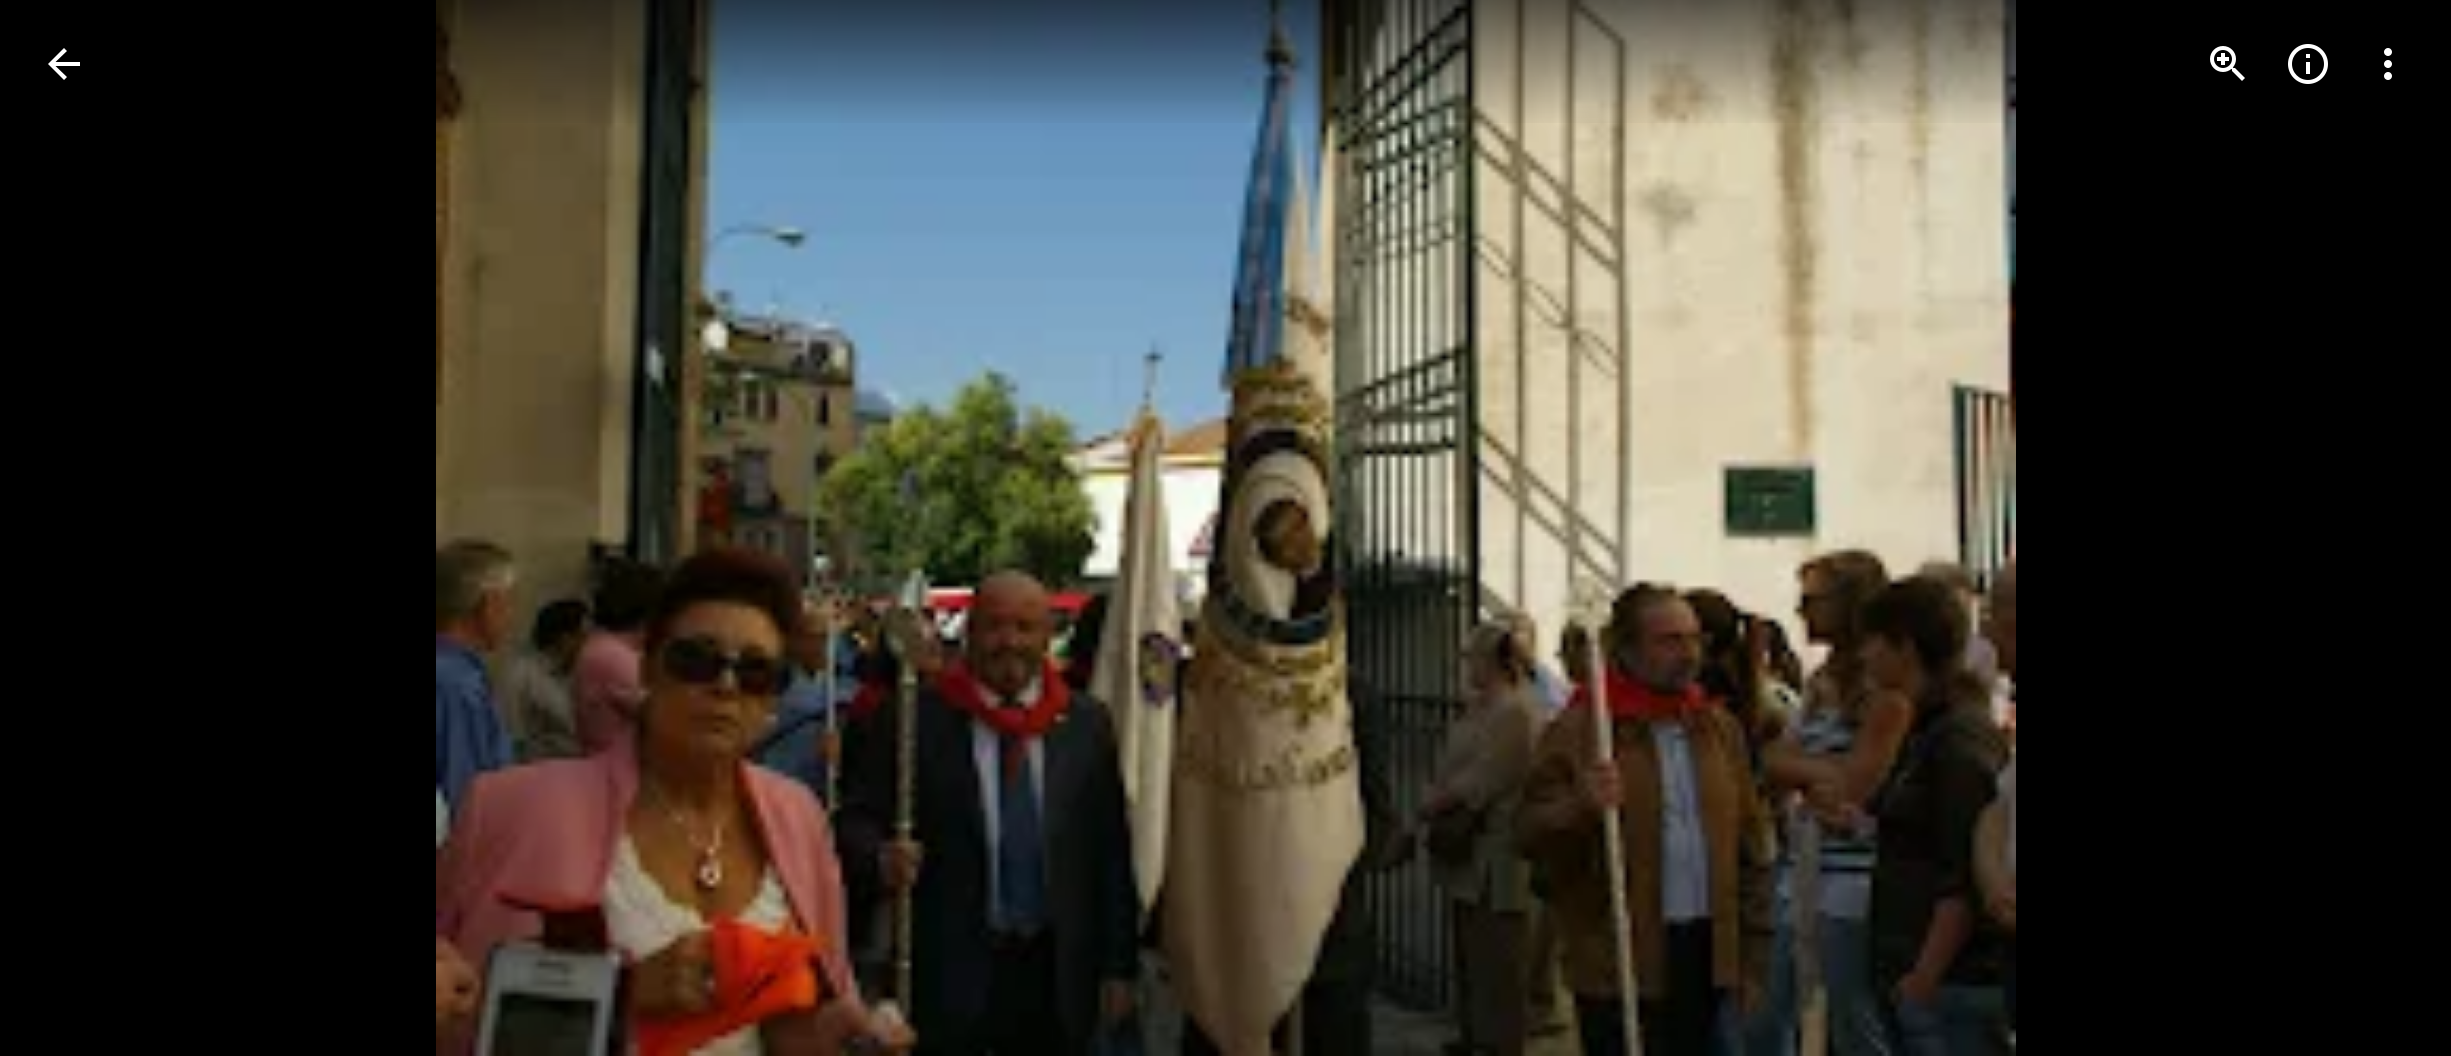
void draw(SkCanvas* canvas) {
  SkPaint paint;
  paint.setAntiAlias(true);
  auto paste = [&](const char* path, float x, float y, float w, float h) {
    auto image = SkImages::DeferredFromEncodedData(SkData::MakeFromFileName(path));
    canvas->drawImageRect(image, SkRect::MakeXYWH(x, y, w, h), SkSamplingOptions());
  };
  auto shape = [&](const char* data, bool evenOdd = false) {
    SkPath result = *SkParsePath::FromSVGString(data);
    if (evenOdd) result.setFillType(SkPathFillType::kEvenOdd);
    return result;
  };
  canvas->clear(0xff000000);
  paste("img/4.png", 436, 0, 1580, 1056);
  {
    const SkColor colors[] = {0x99000000, 0x00000000};
    const float stops[] = {0, 1};
    const SkPoint ends[] = {{1226, 0}, {1226, 128}};
    paint.setShader(SkGradientShader::MakeLinear(ends, colors, stops, 2, SkTileMode::kClamp));
    paint.setAlpha(255);
  }
  canvas->drawRect(SkRect::MakeXYWH(436, 0, 1580, 123), paint);
  paint.setShader(nullptr);
  paint.setColor(0xffffffff);
  canvas->drawPath(shape("M80 62H55.5L67 51L64 48L48 64L64 80L67 77L55.5 66H80Z"), paint);
  paste("img/1.png", 2210, 46, 35, 35);
  paste("img/2.png", 2288, 44, 40, 40);
  paste("img/3.png", 2384, 48, 8, 32);
}
